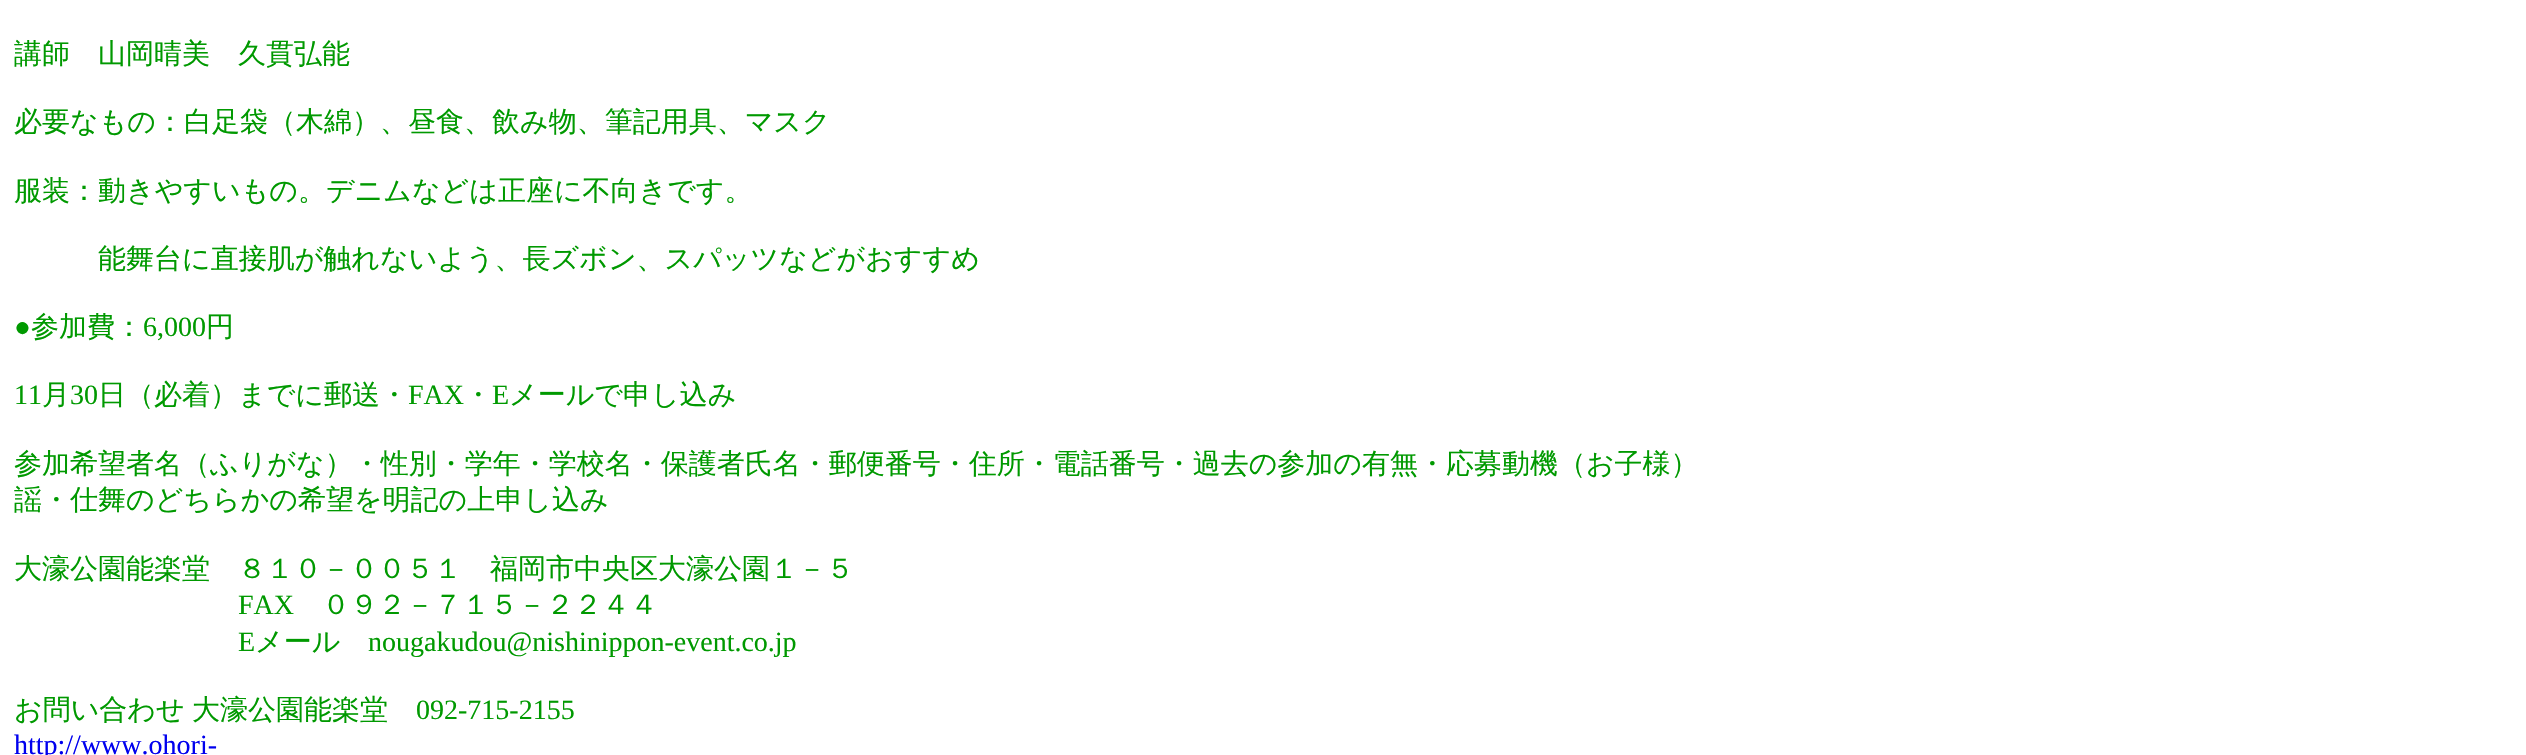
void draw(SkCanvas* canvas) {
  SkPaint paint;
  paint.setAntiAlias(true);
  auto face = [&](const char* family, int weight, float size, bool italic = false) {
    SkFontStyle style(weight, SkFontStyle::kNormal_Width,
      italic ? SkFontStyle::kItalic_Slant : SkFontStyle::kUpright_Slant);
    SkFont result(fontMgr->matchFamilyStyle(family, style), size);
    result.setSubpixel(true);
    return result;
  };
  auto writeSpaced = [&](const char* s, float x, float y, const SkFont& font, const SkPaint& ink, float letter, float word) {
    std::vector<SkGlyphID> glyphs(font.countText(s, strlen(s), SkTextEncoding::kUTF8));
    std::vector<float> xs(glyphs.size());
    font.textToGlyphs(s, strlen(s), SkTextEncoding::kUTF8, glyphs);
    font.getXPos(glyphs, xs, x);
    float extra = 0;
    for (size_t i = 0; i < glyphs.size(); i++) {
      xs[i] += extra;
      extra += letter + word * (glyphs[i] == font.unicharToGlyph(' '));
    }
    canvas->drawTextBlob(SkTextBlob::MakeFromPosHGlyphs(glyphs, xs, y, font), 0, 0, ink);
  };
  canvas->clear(0xffffffff);
  auto f0 = face("WenQuanYi Zen Hei", 500, 28);
  paint.setColor(0xff009900);
  {
    const struct { const char* s; float x, y; } items[] = {
      {"講師　山岡晴美　久貫弘能", 14, 63},
      {"必要なもの：白足袋（木綿）、昼食、飲み物、筆記用具、マスク", 14, 131},
      {"服装：動きやすいもの。デニムなどは正座に不向きです。", 14, 200},
      {"能舞台に直接肌が触れないよう、長ズボン、スパッツなどがおすすめ", 98, 268},
    };
    for (auto [s, x, y] : items) {
      canvas->drawString(s, x, y, f0, paint);
    }
  }
  auto f1 = face("Liberation Serif", 400, 28);
  canvas->drawString("●", 14, 336, f1, paint);
  canvas->drawString("参加費：", 31, 336, f0, paint);
  canvas->drawString("6,000", 143, 336, f1, paint);
  canvas->drawString("円", 206, 336, f0, paint);
  canvas->drawString("11", 14, 404, f1, paint);
  canvas->drawString("月", 42, 404, f0, paint);
  canvas->drawString("30", 70, 404, f1, paint);
  canvas->drawString("日（必着）までに郵送・", 98, 404, f0, paint);
  canvas->drawString("FAX", 408, 404, f1, paint);
  canvas->drawString("・", 464, 404, f0, paint);
  canvas->drawString("E", 492, 404, f1, paint);
  {
    const struct { const char* s; float x, y; } items[] = {
      {"メールで申し込み", 509, 404},
      {"参加希望者名（ふりがな）・性別・学年・学校名・保護者氏名・郵便番号・住所・電話番号・過去の参加の有無・応募動機（お子様）", 14, 473},
      {"謡・仕舞のどちらかの希望を明記の上申し込み", 14, 509},
      {"大濠公園能楽堂　８１０－００５１　福岡市中央区大濠公園１－５", 14, 578},
    };
    for (auto [s, x, y] : items) {
      canvas->drawString(s, x, y, f0, paint);
    }
  }
  canvas->drawString("FAX", 238, 614, f1, paint);
  canvas->drawString("０９２－７１５－２２４４", 322, 614, f0, paint);
  canvas->drawString("E", 238, 651, f1, paint);
  canvas->drawString("メール", 255, 651, f0, paint);
  canvas->drawString("nougakudou@nishinippon-event.co.jp", 368, 651, f1, paint);
  writeSpaced("お問い合わせ 大濠公園能楽堂", 14, 719, f0, paint, 0, -1);
  canvas->drawString("092-715-2155", 416, 719, f1, paint);
  paint.setColor(0xff0000ee);
  canvas->drawString("http://www.ohori-", 14, 754, f1, paint);
}
